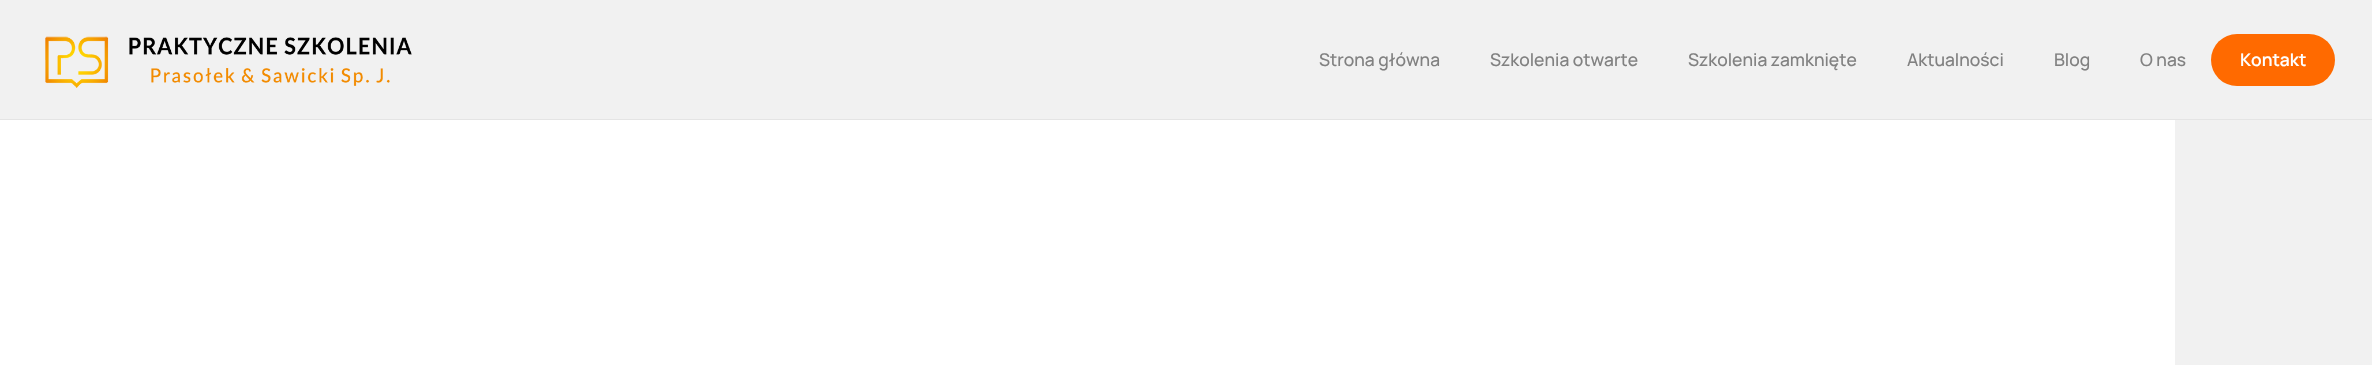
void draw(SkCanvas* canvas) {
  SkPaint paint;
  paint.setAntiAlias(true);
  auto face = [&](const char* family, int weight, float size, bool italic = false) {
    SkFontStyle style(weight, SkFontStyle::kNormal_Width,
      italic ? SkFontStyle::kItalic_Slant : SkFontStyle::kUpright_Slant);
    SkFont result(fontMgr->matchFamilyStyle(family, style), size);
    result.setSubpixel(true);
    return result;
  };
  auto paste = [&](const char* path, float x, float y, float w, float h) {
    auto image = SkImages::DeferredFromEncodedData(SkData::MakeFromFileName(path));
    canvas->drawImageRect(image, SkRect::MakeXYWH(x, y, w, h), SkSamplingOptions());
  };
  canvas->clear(0xfff1f1f1);
  paint.setColor(0xffe4e4e4);
  canvas->drawRect(SkRect::MakeXYWH(0, 119, 2372, 1), paint);
  paste("img/1.png", 45, 36, 367, 52);
  paint.setColor(0xffff6a00);
  canvas->drawRoundRect(SkRect::MakeXYWH(2211, 34, 124, 52), 26, 26, paint);
  paint.setColor(0xffffffff);
  canvas->drawRect(SkRect::MakeXYWH(0, 120, 2175, 245), paint);
  auto f0 = face("Manrope", 500, 17.5f);
  paint.setColor(0xff818181);
  {
    const struct { const char* s; float x, y; } items[] = {
      {"Strona główna", 1319, 66},
      {"Szkolenia otwarte", 1490, 66},
      {"Szkolenia zamknięte", 1688, 66},
      {"Aktualności", 1907, 66},
      {"Blog", 2054, 66},
      {"O nas", 2140, 66},
    };
    for (auto [s, x, y] : items) {
      canvas->drawString(s, x, y, f0, paint);
    }
  }
  auto f1 = face("Manrope", 600, 17.5f);
  paint.setColor(0xffffffff);
  canvas->drawString("Kontakt", 2240, 66, f1, paint);
}
